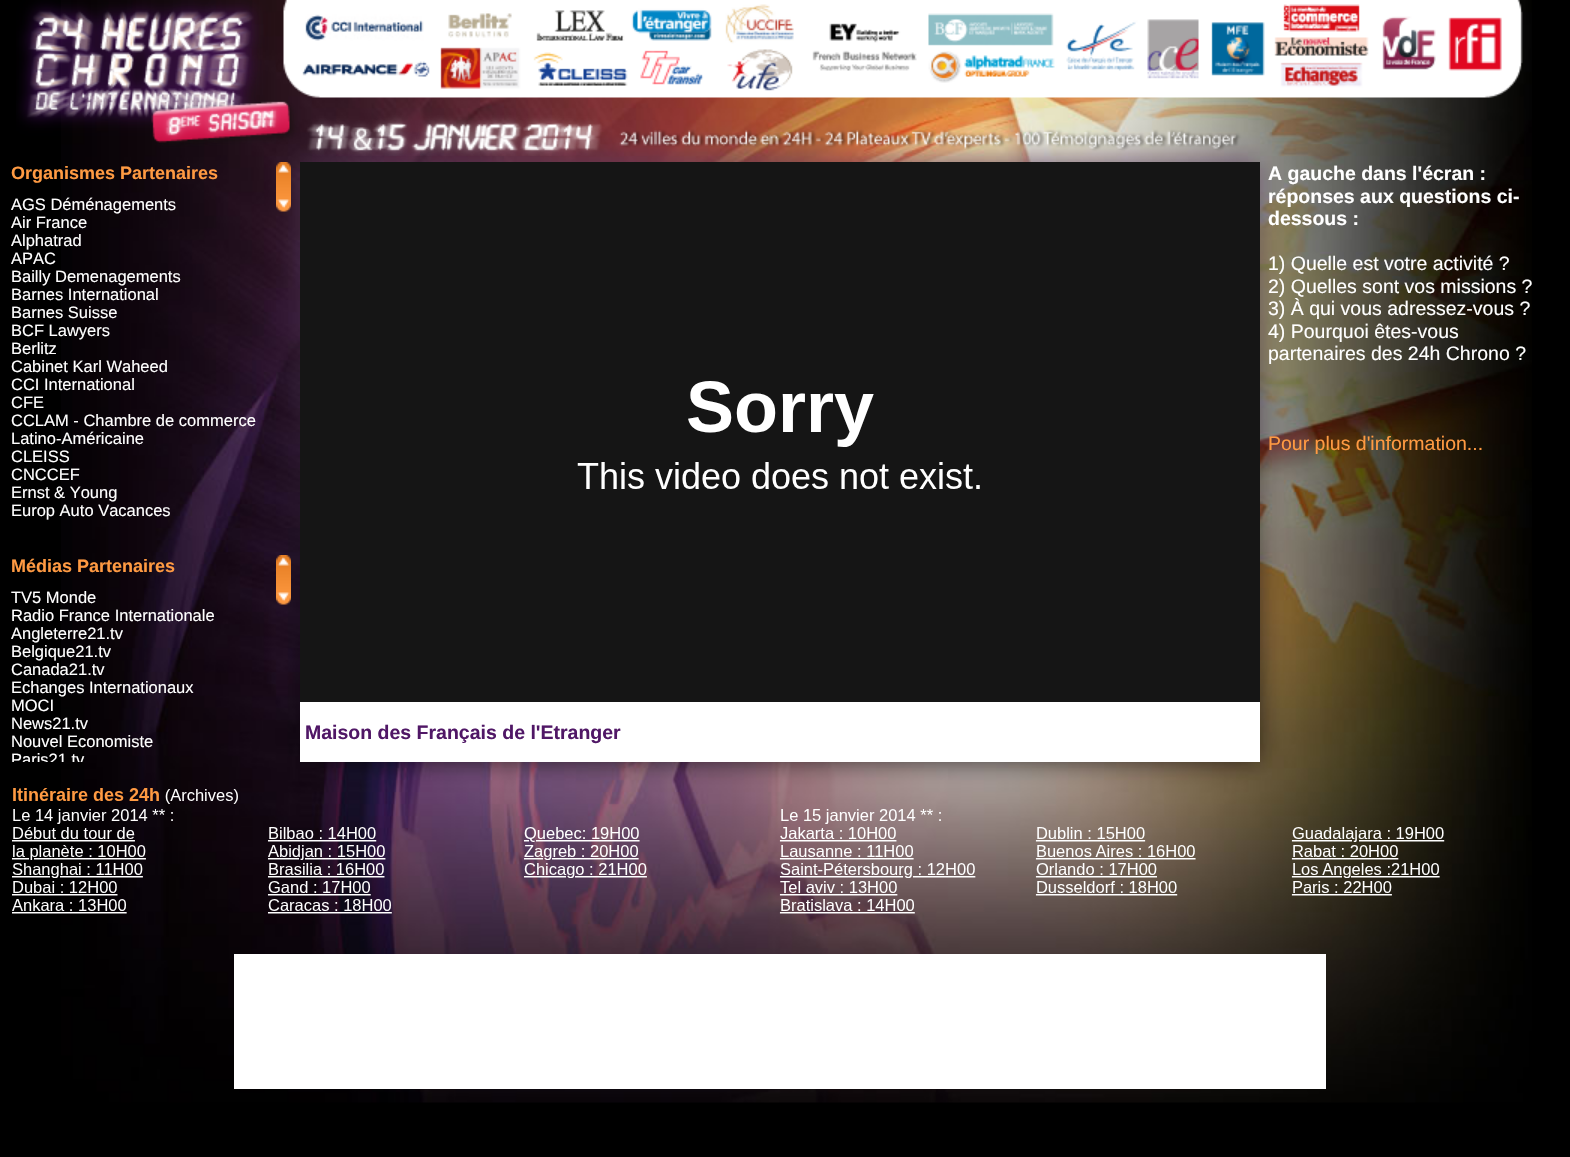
void draw(SkCanvas* canvas) {
  SkPaint paint;
  paint.setAntiAlias(true);
  auto face = [&](const char* family, int weight, float size, bool italic = false) {
    SkFontStyle style(weight, SkFontStyle::kNormal_Width,
      italic ? SkFontStyle::kItalic_Slant : SkFontStyle::kUpright_Slant);
    SkFont result(fontMgr->matchFamilyStyle(family, style), size);
    result.setSubpixel(true);
    return result;
  };
  auto paste = [&](const char* path, float x, float y, float w, float h) {
    auto image = SkImages::DeferredFromEncodedData(SkData::MakeFromFileName(path));
    canvas->drawImageRect(image, SkRect::MakeXYWH(x, y, w, h), SkSamplingOptions());
  };
  canvas->clear(0xff000000);
  paste("img/1.png", 61, 0, 1471, 1103);
  paste("img/2.png", 16, 0, 1507, 156);
  paste("img/3.png", 276, 162, 15, 50);
  paste("img/4.png", 276, 555, 15, 50);
  paste("img/5.png", 300, 162, 960, 540);
  paint.setColor(0xffffffff);
  canvas->drawRect(SkRect::MakeXYWH(300, 702, 960, 60), paint);
  paste("img/6.png", 12, 788, 1433, 126);
  canvas->drawRect(SkRect::MakeXYWH(234, 954, 1092, 135), paint);
  auto f0 = face("Liberation Sans", 700, 18);
  paint.setColor(0xffff9a42);
  canvas->drawString("Organismes Partenaires", 11, 179, f0, paint);
  auto f1 = face("Liberation Sans", 400, 16.5f);
  paint.setColor(0xffffffff);
  {
    const struct { const char* s; float x, y; } items[] = {
      {"AGS Déménagements", 11, 210},
      {"Air France", 11, 228},
      {"Alphatrad", 11, 246},
      {"APAC", 11, 264},
      {"Bailly Demenagements", 11, 282},
      {"Barnes International", 11, 300},
      {"Barnes Suisse", 11, 318},
      {"BCF Lawyers", 11, 336},
      {"Berlitz", 11, 354},
      {"Cabinet Karl Waheed", 11, 372},
      {"CCI International", 11, 390},
      {"CFE", 11, 408},
      {"CCLAM - Chambre de commerce", 11, 426},
      {"Latino-Américaine", 11, 444},
      {"CLEISS", 11, 462},
      {"CNCCEF", 11, 480},
      {"Ernst & Young", 11, 498},
      {"Europ Auto Vacances", 11, 516},
    };
    for (auto [s, x, y] : items) {
      canvas->drawString(s, x, y, f1, paint);
    }
  }
  paint.setColor(0xffff9a42);
  canvas->drawString("Médias Partenaires", 11, 572, f0, paint);
  paint.setColor(0xffffffff);
  {
    const struct { const char* s; float x, y; } items[] = {
      {"TV5 Monde", 11, 603},
      {"Radio France Internationale", 11, 621},
      {"Angleterre21.tv", 11, 639},
      {"Belgique21.tv", 11, 657},
      {"Canada21.tv", 11, 675},
      {"Echanges Internationaux", 11, 693},
      {"MOCI", 11, 711},
      {"News21.tv", 11, 729},
      {"Nouvel Economiste", 11, 747},
    };
    for (auto [s, x, y] : items) {
      canvas->drawString(s, x, y, f1, paint);
    }
  }
  canvas->save();
  canvas->clipRect(SkRect::MakeXYWH(12, 555, 264, 207));
  canvas->drawString("Paris21.tv", 11, 765, f1, paint);
  canvas->restore();
  auto f2 = face("Liberation Sans", 700, 19.5f);
  {
    const struct { const char* s; float x, y; } items[] = {
      {"A gauche dans l'écran :", 1268, 180},
      {"réponses aux questions ci-", 1268, 203},
      {"dessous :", 1268, 225},
    };
    for (auto [s, x, y] : items) {
      canvas->drawString(s, x, y, f2, paint);
    }
  }
  auto f3 = face("Liberation Sans", 400, 19.5f);
  {
    const struct { const char* s; float x, y; } items[] = {
      {"1) Quelle est votre activité ?", 1268, 270},
      {"2) Quelles sont vos missions ?", 1268, 293},
      {"3) À qui vous adressez-vous ?", 1268, 315},
      {"4) Pourquoi êtes-vous", 1268, 338},
      {"partenaires des 24h Chrono ?", 1268, 360},
    };
    for (auto [s, x, y] : items) {
      canvas->drawString(s, x, y, f3, paint);
    }
  }
  paint.setColor(0xffff9a42);
  canvas->drawString("Pour plus d'information...", 1268, 450, f3, paint);
  paint.setColor(0xff501766);
  canvas->drawString("Maison des Français de l'Etranger", 305, 739, f2, paint);
}
